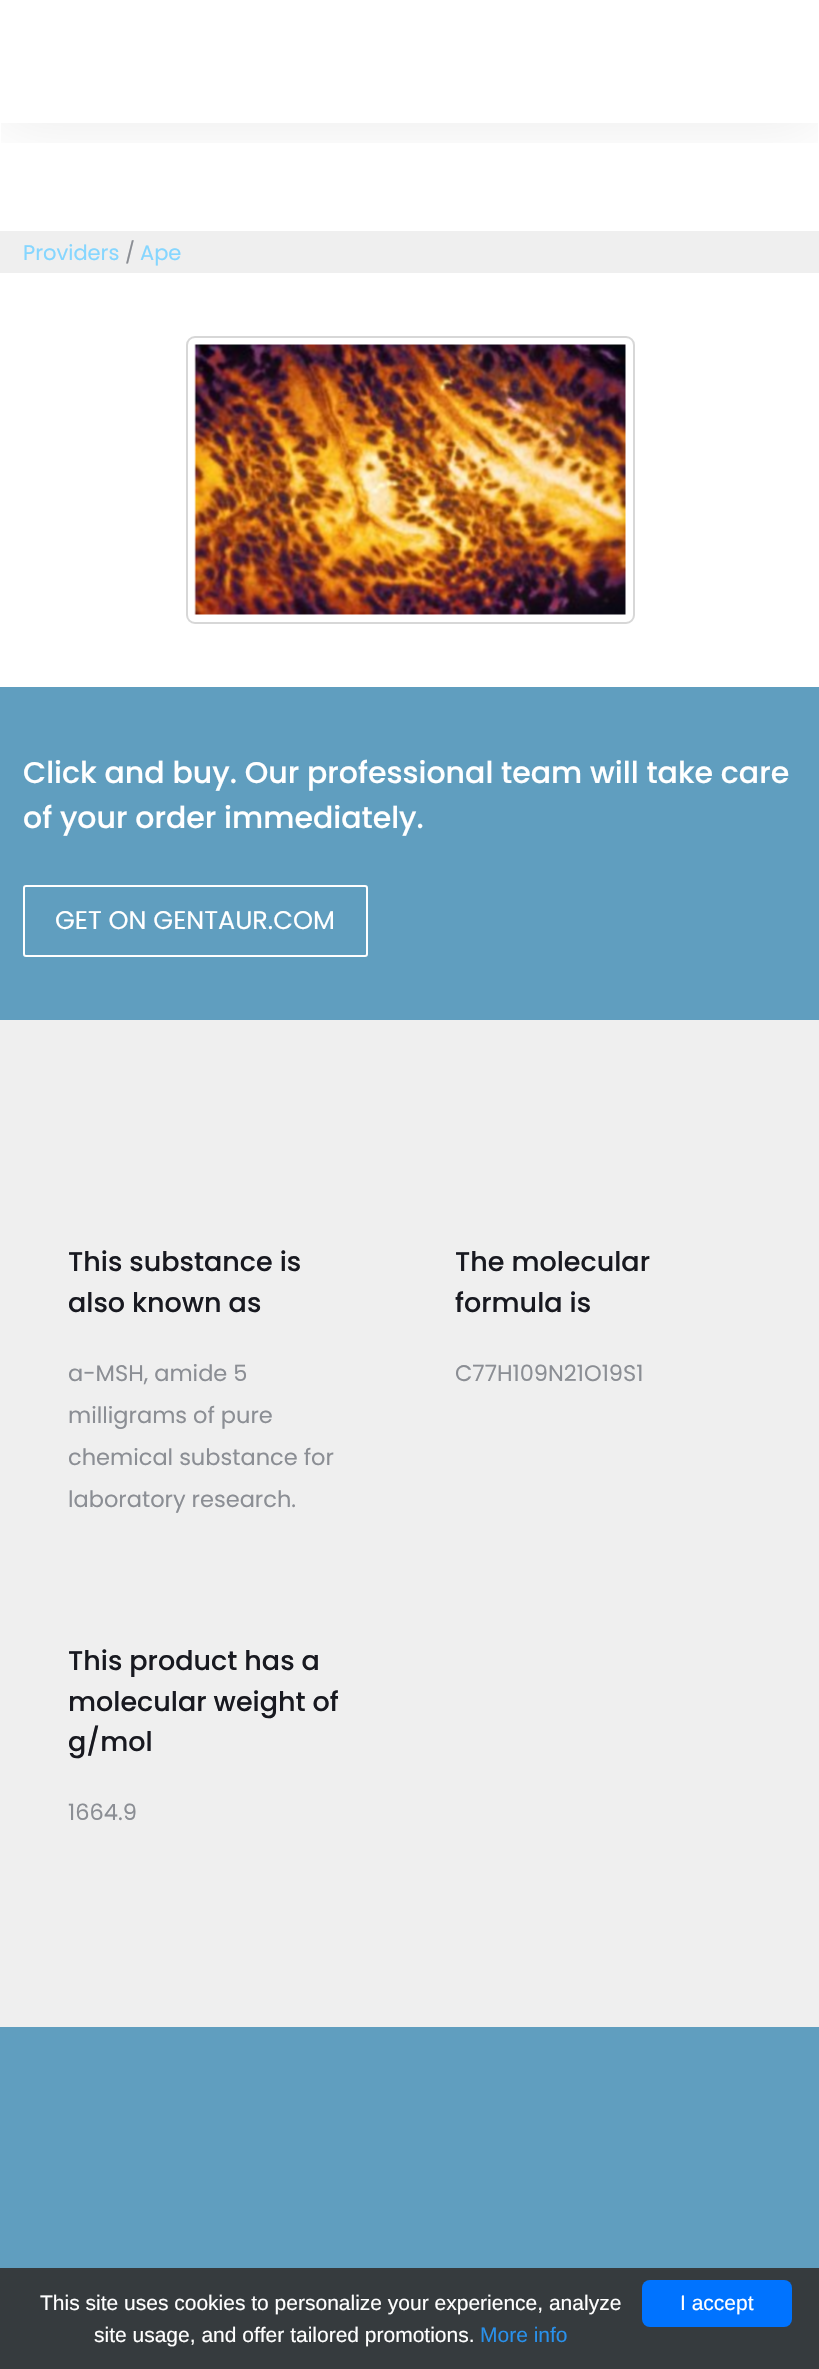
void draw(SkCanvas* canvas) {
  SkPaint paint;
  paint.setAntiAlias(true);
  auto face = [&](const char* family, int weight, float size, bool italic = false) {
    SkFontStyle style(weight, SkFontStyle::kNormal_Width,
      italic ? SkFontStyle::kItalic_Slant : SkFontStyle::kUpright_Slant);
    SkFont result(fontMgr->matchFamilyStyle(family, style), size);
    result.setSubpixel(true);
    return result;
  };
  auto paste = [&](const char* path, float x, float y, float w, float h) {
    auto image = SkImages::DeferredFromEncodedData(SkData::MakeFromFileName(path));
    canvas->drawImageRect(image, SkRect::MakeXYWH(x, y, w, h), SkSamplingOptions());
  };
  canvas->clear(0xffefefef);
  paint.setColor(0xffffffff);
  canvas->drawRect(SkRect::MakeXYWH(0, 0, 819, 231), paint);
  canvas->save();
  canvas->clipRect(SkRect::MakeXYWH(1, 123, 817, 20));
  paint.setColor(0x14000000);
  paint.setMaskFilter(SkMaskFilter::MakeBlur(kNormal_SkBlurStyle, 30));
  canvas->drawRect(SkRect::MakeXYWH(0, -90, 819, 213), paint);
  paint.setMaskFilter(nullptr);
  canvas->restore();
  paint.setColor(0xffffffff);
  canvas->drawRect(SkRect::MakeXYWH(0, 273, 819, 414), paint);
  paint.setStroke(true);
  paint.setStrokeWidth(2);
  paint.setColor(0xffd7d7d7);
  canvas->drawRoundRect(SkRect::MakeXYWH(187, 337, 447, 286), 8, 8, paint);
  paste("img/1.png", 194, 344, 432, 271);
  paint.setStroke(false);
  paint.setColor(0xff609ebf);
  canvas->drawRect(SkRect::MakeXYWH(0, 687, 819, 333), paint);
  paint.setStroke(true);
  paint.setColor(0xffffffff);
  canvas->drawRoundRect(SkRect::MakeXYWH(24, 886, 343, 70), 2, 2, paint);
  paint.setStroke(false);
  paint.setColor(0xff609ebf);
  canvas->drawRect(SkRect::MakeXYWH(0, 2027, 819, 241), paint);
  paint.setColor(0xff363b3e);
  canvas->drawRect(SkRect::MakeXYWH(0, 2268, 819, 101), paint);
  paint.setColor(0xff0073ff);
  canvas->drawRoundRect(SkRect::MakeXYWH(642, 2280, 150, 47), 8, 8, paint);
  auto f0 = face("Poppins", 400, 21);
  paint.setColor(0xff85d6ff);
  canvas->drawString("Providers", 23, 260, f0, paint);
  paint.setColor(0xff8b8e94);
  canvas->drawString("/", 125, 260, f0, paint);
  paint.setColor(0xff85d6ff);
  canvas->drawString("Ape", 140, 260, f0, paint);
  auto f1 = face("Poppins", 500, 30);
  paint.setColor(0xffffffff);
  canvas->drawString("Click and buy. Our professional team will take care", 23, 783, f1, paint);
  canvas->drawString("of your order immediately.", 23, 828, f1, paint);
  auto f2 = face("Poppins", 400, 25.5f);
  canvas->drawString("GET ON GENTAUR.COM", 55, 929, f2, paint);
  auto f3 = face("Poppins", 500, 27);
  paint.setColor(0xff181920);
  canvas->drawString("This substance is", 68, 1271, f3, paint);
  canvas->drawString("also known as", 68, 1312, f3, paint);
  auto f4 = face("Poppins", 400, 22.5f);
  paint.setColor(0xff8b8e94);
  {
    const struct { const char* s; float x, y; } items[] = {
      {"a-MSH, amide 5", 68, 1381},
      {"milligrams of pure", 68, 1423},
      {"chemical substance for", 68, 1465},
      {"laboratory research.", 68, 1507},
    };
    for (auto [s, x, y] : items) {
      canvas->drawString(s, x, y, f4, paint);
    }
  }
  paint.setColor(0xff181920);
  canvas->drawString("The molecular", 455, 1271, f3, paint);
  canvas->drawString("formula is", 455, 1312, f3, paint);
  paint.setColor(0xff8b8e94);
  canvas->drawString("C77H109N21O19S1", 455, 1381, f4, paint);
  paint.setColor(0xff181920);
  {
    const struct { const char* s; float x, y; } items[] = {
      {"This product has a", 68, 1670},
      {"molecular weight of", 68, 1711},
      {"g/mol", 68, 1751},
    };
    for (auto [s, x, y] : items) {
      canvas->drawString(s, x, y, f3, paint);
    }
  }
  paint.setColor(0xff8b8e94);
  canvas->drawString("1664.9", 68, 1820, f4, paint);
  auto f5 = face("Liberation Sans", 400, 21);
  paint.setColor(0xffffffff);
  canvas->drawString("This site uses cookies to personalize your experience, analyze", 40, 2310, f5, paint);
  canvas->drawString("site usage, and offer tailored promotions.", 94, 2342, f5, paint);
  paint.setColor(0xff2990ea);
  canvas->drawString("More info", 480, 2342, f5, paint);
  paint.setColor(0xffffffff);
  canvas->drawString("I accept", 680, 2310, f5, paint);
}
